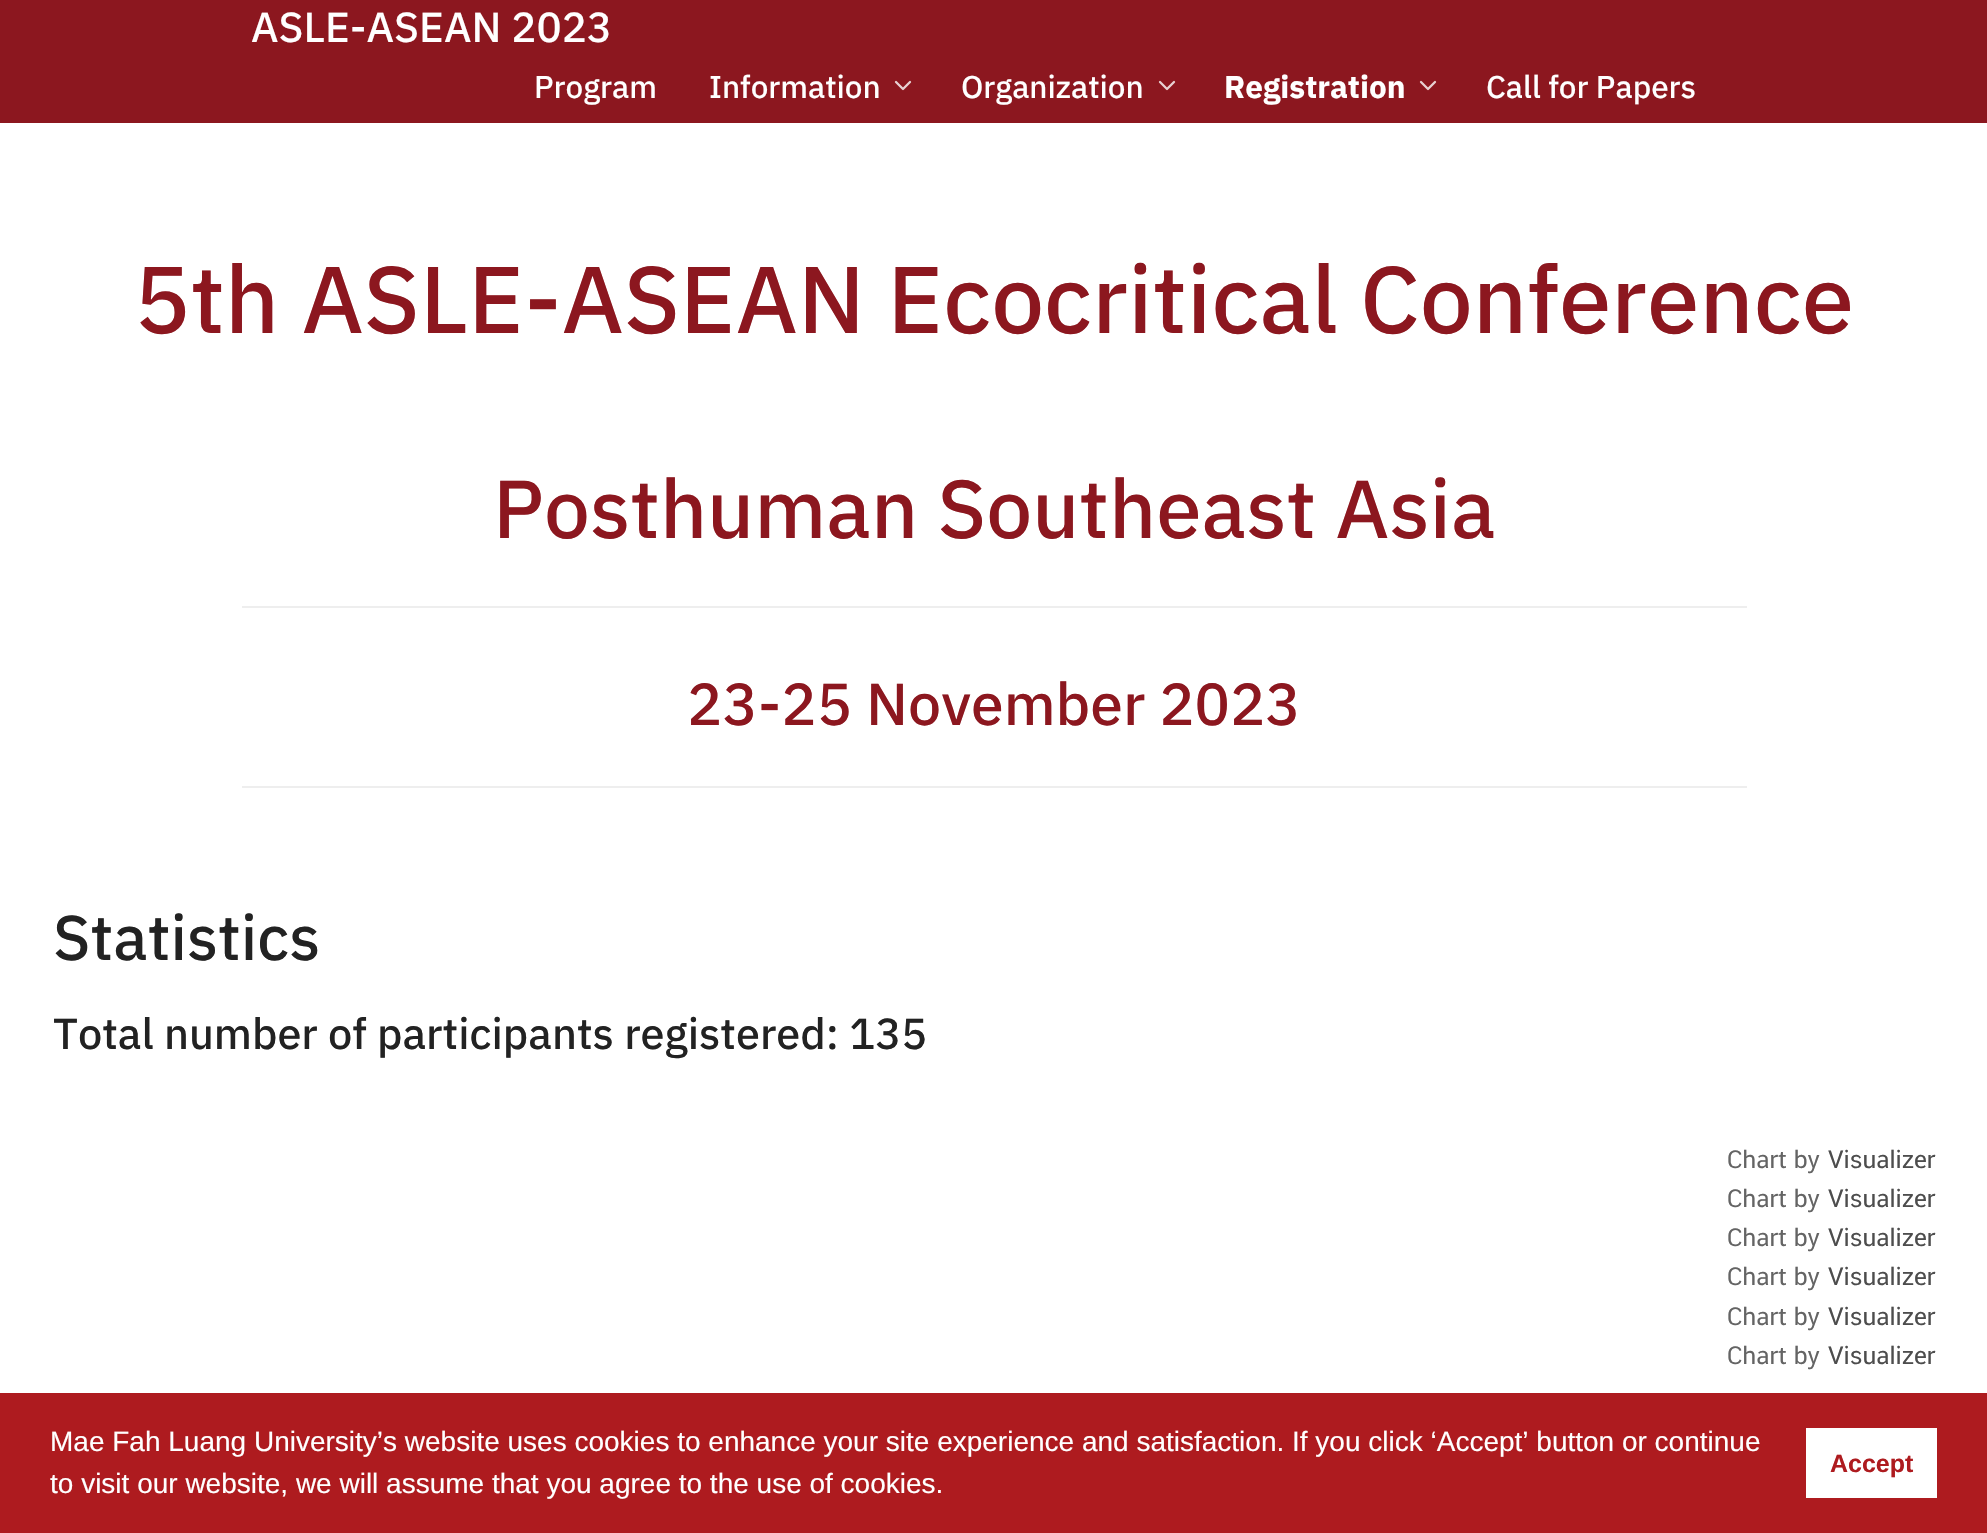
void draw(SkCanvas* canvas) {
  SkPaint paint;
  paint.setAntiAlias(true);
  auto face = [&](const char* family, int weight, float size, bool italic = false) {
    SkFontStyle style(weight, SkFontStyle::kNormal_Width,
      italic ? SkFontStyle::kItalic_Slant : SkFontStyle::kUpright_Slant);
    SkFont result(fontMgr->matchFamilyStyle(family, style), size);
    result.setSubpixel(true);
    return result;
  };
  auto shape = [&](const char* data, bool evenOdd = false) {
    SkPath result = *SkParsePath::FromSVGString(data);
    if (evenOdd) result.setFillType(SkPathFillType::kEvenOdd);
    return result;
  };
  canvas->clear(0xffffffff);
  paint.setColor(0xff8c171f);
  canvas->drawRect(SkRect::MakeXYWH(0, 0, 1987, 123), paint);
  paint.setStroke(true);
  paint.setStrokeWidth(2.3f);
  paint.setStrokeCap(SkPaint::kRound_Cap);
  paint.setStrokeJoin(SkPaint::kRound_Join);
  paint.setColor(0xffe8d1d2);
  canvas->drawPath(shape("M896 82L903 89L910 82"), paint);
  canvas->drawPath(shape("M1160 82L1167 89L1174 82"), paint);
  canvas->drawPath(shape("M1421 82L1428 89L1435 82"), paint);
  paint.setStroke(false);
  {
    const struct { float x, y, w, h; SkColor color; } items[] = {
      {242, 606, 1505, 2, 0xffeeeeee},
      {242, 786, 1505, 2, 0xffeeeeee},
      {0, 1393, 1987, 140, 0xffae1b1f},
      {1806, 1428, 131, 70, 0xffffffff},
    };
    for (auto [x, y, w, h, color] : items) {
      paint.setColor(color);
      canvas->drawRect(SkRect::MakeXYWH(x, y, w, h), paint);
    }
  }
  auto f0 = face("Anuphan", 500, 42);
  canvas->drawString("ASLE-ASEAN 2023", 251, 42, f0, paint);
  auto f1 = face("Anuphan", 500, 31.5f);
  {
    const struct { const char* s; float x, y; } items[] = {
      {"Program", 534, 98},
      {"Information", 709, 98},
      {"Organization", 961, 98},
    };
    for (auto [s, x, y] : items) {
      canvas->drawString(s, x, y, f1, paint);
    }
  }
  auto f2 = face("anuphan", 700, 31.5f);
  canvas->drawString("Registration", 1224, 98, f2, paint);
  canvas->drawString("Call for Papers", 1486, 98, f1, paint);
  auto f3 = face("Anuphan", 500, 94.5f);
  paint.setColor(0xff8c171f);
  canvas->drawString("5th ASLE-ASEAN Ecocritical Conference", 134, 333, f3, paint);
  auto f4 = face("Anuphan", 500, 81.9f);
  canvas->drawString("Posthuman Southeast Asia", 493, 538, f4, paint);
  auto f5 = face("Anuphan", 500, 59);
  canvas->drawString("23-25 November 2023", 687, 725, f5, paint);
  auto f6 = face("Anuphan", 500, 63);
  paint.setColor(0xff222222);
  canvas->drawString("Statistics", 53, 960, f6, paint);
  auto f7 = face("Anuphan", 500, 43.3f);
  canvas->drawString("Total number of participants registered: 135", 53, 1049, f7, paint);
  auto f8 = face("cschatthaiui", 400, 24.5f);
  paint.setColor(0xff646464);
  canvas->drawString("Chart by", 1727, 1168, f8, paint);
  paint.setColor(0xff4d4d4d);
  canvas->drawString("Visualizer", 1828, 1168, f8, paint);
  paint.setColor(0xff646464);
  canvas->drawString("Chart by", 1727, 1207, f8, paint);
  paint.setColor(0xff4d4d4d);
  canvas->drawString("Visualizer", 1828, 1207, f8, paint);
  paint.setColor(0xff646464);
  canvas->drawString("Chart by", 1727, 1246, f8, paint);
  paint.setColor(0xff4d4d4d);
  canvas->drawString("Visualizer", 1828, 1246, f8, paint);
  paint.setColor(0xff646464);
  canvas->drawString("Chart by", 1727, 1285, f8, paint);
  paint.setColor(0xff4d4d4d);
  canvas->drawString("Visualizer", 1828, 1285, f8, paint);
  paint.setColor(0xff646464);
  canvas->drawString("Chart by", 1727, 1325, f8, paint);
  paint.setColor(0xff4d4d4d);
  canvas->drawString("Visualizer", 1828, 1325, f8, paint);
  paint.setColor(0xff646464);
  canvas->drawString("Chart by", 1727, 1364, f8, paint);
  paint.setColor(0xff4d4d4d);
  canvas->drawString("Visualizer", 1828, 1364, f8, paint);
  auto f9 = face("Liberation Sans", 400, 28);
  paint.setColor(0xffffffff);
  canvas->drawString("Mae Fah Luang University’s website uses cookies to enhance your site experience and satisfaction. If you click ‘Accept’ button or continue", 50, 1451, f9, paint);
  canvas->drawString("to visit our website, we will assume that you agree to the use of cookies.", 50, 1493, f9, paint);
  auto f10 = face("Liberation Sans", 700, 25);
  paint.setColor(0xffae1b1f);
  canvas->drawString("Accept", 1830, 1472, f10, paint);
}
